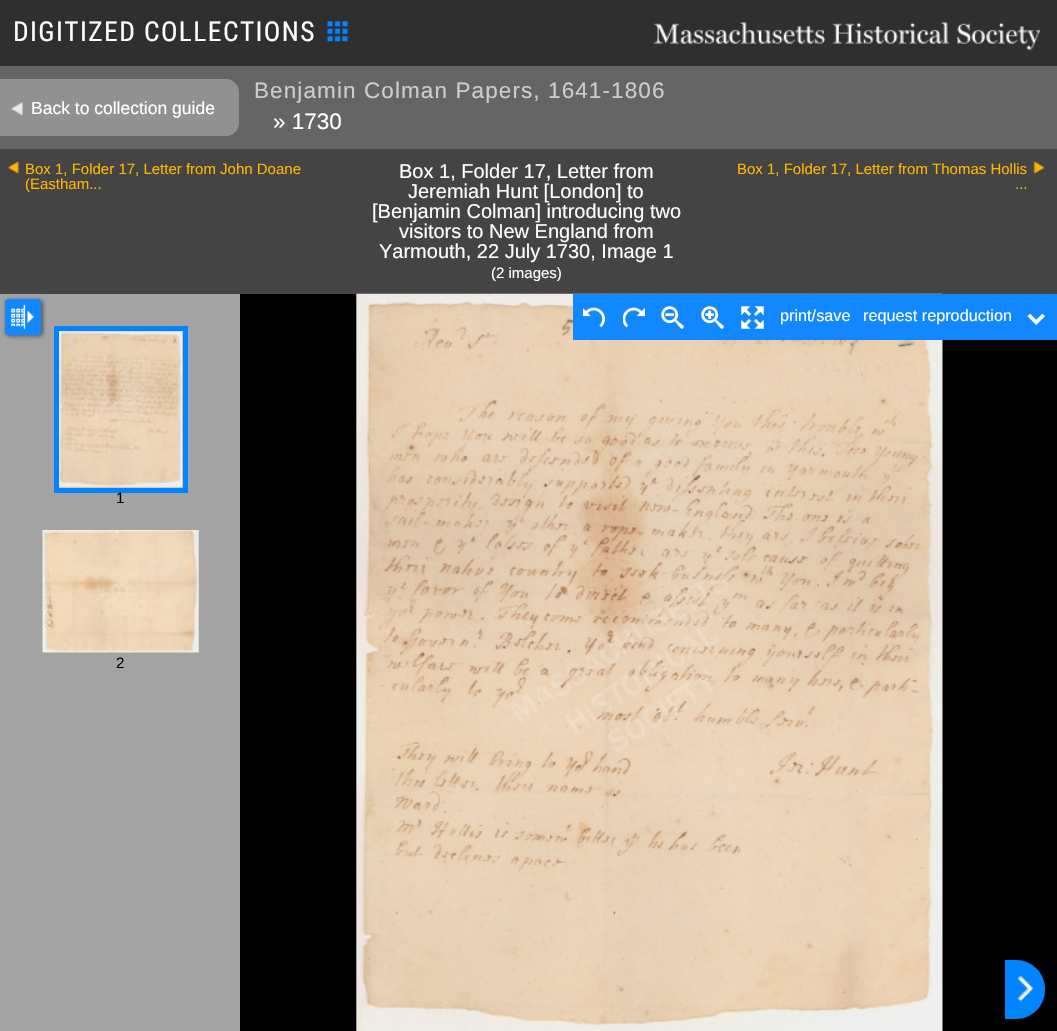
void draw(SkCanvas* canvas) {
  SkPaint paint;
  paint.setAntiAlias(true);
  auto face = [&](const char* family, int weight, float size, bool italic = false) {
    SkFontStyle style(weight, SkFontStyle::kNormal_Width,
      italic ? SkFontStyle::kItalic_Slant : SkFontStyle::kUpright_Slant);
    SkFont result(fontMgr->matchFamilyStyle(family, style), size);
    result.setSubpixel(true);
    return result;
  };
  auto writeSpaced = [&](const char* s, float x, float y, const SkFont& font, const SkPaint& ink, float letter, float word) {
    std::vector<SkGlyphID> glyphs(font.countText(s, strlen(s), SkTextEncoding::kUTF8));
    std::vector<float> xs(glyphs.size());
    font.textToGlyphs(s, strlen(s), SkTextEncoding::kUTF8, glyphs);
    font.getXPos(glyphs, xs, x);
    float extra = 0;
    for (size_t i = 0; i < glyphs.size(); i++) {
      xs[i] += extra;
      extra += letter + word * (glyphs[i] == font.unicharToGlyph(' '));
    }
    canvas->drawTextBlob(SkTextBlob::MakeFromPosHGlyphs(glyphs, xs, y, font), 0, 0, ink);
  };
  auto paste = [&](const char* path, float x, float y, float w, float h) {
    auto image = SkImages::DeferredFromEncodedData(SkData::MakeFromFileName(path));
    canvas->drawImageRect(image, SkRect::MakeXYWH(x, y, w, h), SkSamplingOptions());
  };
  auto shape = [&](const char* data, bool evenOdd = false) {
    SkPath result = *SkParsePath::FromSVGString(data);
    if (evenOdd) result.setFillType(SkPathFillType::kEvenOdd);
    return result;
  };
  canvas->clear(0xff000000);
  paint.setColor(0xff2f2f2f);
  canvas->drawRect(SkRect::MakeXYWH(0, 0, 1057, 66), paint);
  paste("img/1.png", 327, 21, 21, 21);
  paste("img/2.png", 653, 22, 387, 29);
  paint.setColor(0xff656565);
  canvas->drawRect(SkRect::MakeXYWH(0, 66, 1057, 83), paint);
  paint.setColor(0xff919191);
  canvas->drawPath(shape("M0 79H226C233 79 239 85 239 92V123C239 130 233 136 226 136H0Z"), paint);
  paste("img/3.png", 11, 102, 12, 14);
  paint.setColor(0xff444444);
  canvas->drawRect(SkRect::MakeXYWH(0, 149, 1057, 145), paint);
  paste("img/4.png", 7, 161, 12, 13);
  paste("img/5.png", 1033, 161, 12, 13);
  paste("img/6.png", 356, 293, 587, 738);
  paint.setColor(0xff1188ff);
  canvas->drawRect(SkRect::MakeXYWH(573, 294, 484, 46), paint);
  paste("img/7.png", 583, 307, 22, 21);
  paste("img/8.png", 623, 307, 22, 21);
  paste("img/9.png", 661, 306, 23, 23);
  paste("img/10.png", 701, 306, 23, 23);
  paste("img/11.png", 741, 306, 23, 23);
  paste("img/12.png", 1027, 313, 18, 12);
  paint.setColor(0xff0084ff);
  canvas->drawPath(shape("M1005 960H1016C1032 960 1045 973 1045 989V990C1045 1006 1032 1019 1016 1019H1005Z"), paint);
  paste("img/13.png", 1017, 975, 17, 27);
  paint.setColor(0xffa3a3a3);
  canvas->drawRect(SkRect::MakeXYWH(0, 294, 240, 737), paint);
  paint.setColor(0x80000000);
  paint.setMaskFilter(SkMaskFilter::MakeBlur(kNormal_SkBlurStyle, 2));
  canvas->drawRoundRect(SkRect::MakeXYWH(6, 300, 37, 36), 4, 4, paint);
  paint.setMaskFilter(nullptr);
  paint.setColor(0xff1188ff);
  canvas->drawRoundRect(SkRect::MakeXYWH(5, 299, 36, 36), 4, 4, paint);
  paste("img/14.png", 11, 304, 23, 25);
  paste("img/15.png", 59, 331, 124, 157);
  paint.setStroke(true);
  paint.setStrokeWidth(5);
  paint.setColor(0xff0084ff);
  canvas->drawRect(SkRect::MakeXYWH(56.5f, 328.5f, 129, 162), paint);
  paste("img/16.png", 42, 530, 157, 123);
  auto f0 = face("Roboto Condensed", 400, 27.5f);
  paint.setStroke(false);
  paint.setColor(0xffffffff);
  writeSpaced("DIGITIZED COLLECTIONS", 13, 41, f0, paint, 1.4f, 0);
  auto f1 = face("Liberation Sans", 400, 17.5f);
  canvas->drawString("Back to collection guide", 31, 114, f1, paint);
  auto f2 = face("Liberation Sans", 400, 22.5f);
  paint.setColor(0xffcdcdcd);
  writeSpaced("Benjamin Colman Papers, 1641-1806", 254, 98, f2, paint, 1.1f, 0);
  paint.setColor(0xffffffff);
  canvas->drawString("» 1730", 273, 129, f2, paint);
  auto f3 = face("Liberation Sans", 400, 15);
  paint.setColor(0xffffb600);
  canvas->drawString("Box 1, Folder 17, Letter from John Doane", 25, 174, f3, paint);
  canvas->drawString("(Eastham...", 25, 189, f3, paint);
  auto f4 = face("Liberation Sans", 400, 20);
  paint.setColor(0xffffffff);
  {
    const struct { const char* s; float x, y; } items[] = {
      {"Box 1, Folder 17, Letter from", 399, 178},
      {"Jeremiah Hunt [London] to", 408, 198},
      {"[Benjamin Colman] introducing two", 372, 218},
      {"visitors to New England from", 399, 238},
      {"Yarmouth, 22 July 1730, Image 1", 379, 258},
    };
    for (auto [s, x, y] : items) {
      canvas->drawString(s, x, y, f4, paint);
    }
  }
  canvas->drawString("(2 images)", 491, 278, f3, paint);
  paint.setColor(0xffffb600);
  canvas->drawString("Box 1, Folder 17, Letter from Thomas Hollis", 737, 174, f3, paint);
  canvas->drawString("...", 1015, 189, f3, paint);
  auto f5 = face("Liberation Sans", 400, 16.25f);
  paint.setColor(0xffffffff);
  canvas->drawString("print/save", 780, 321, f5, paint);
  canvas->drawString("request reproduction", 863, 321, f5, paint);
  paint.setColor(0xff000000);
  canvas->drawString("1", 116, 503, f3, paint);
  canvas->drawString("2", 116, 668, f3, paint);
}
